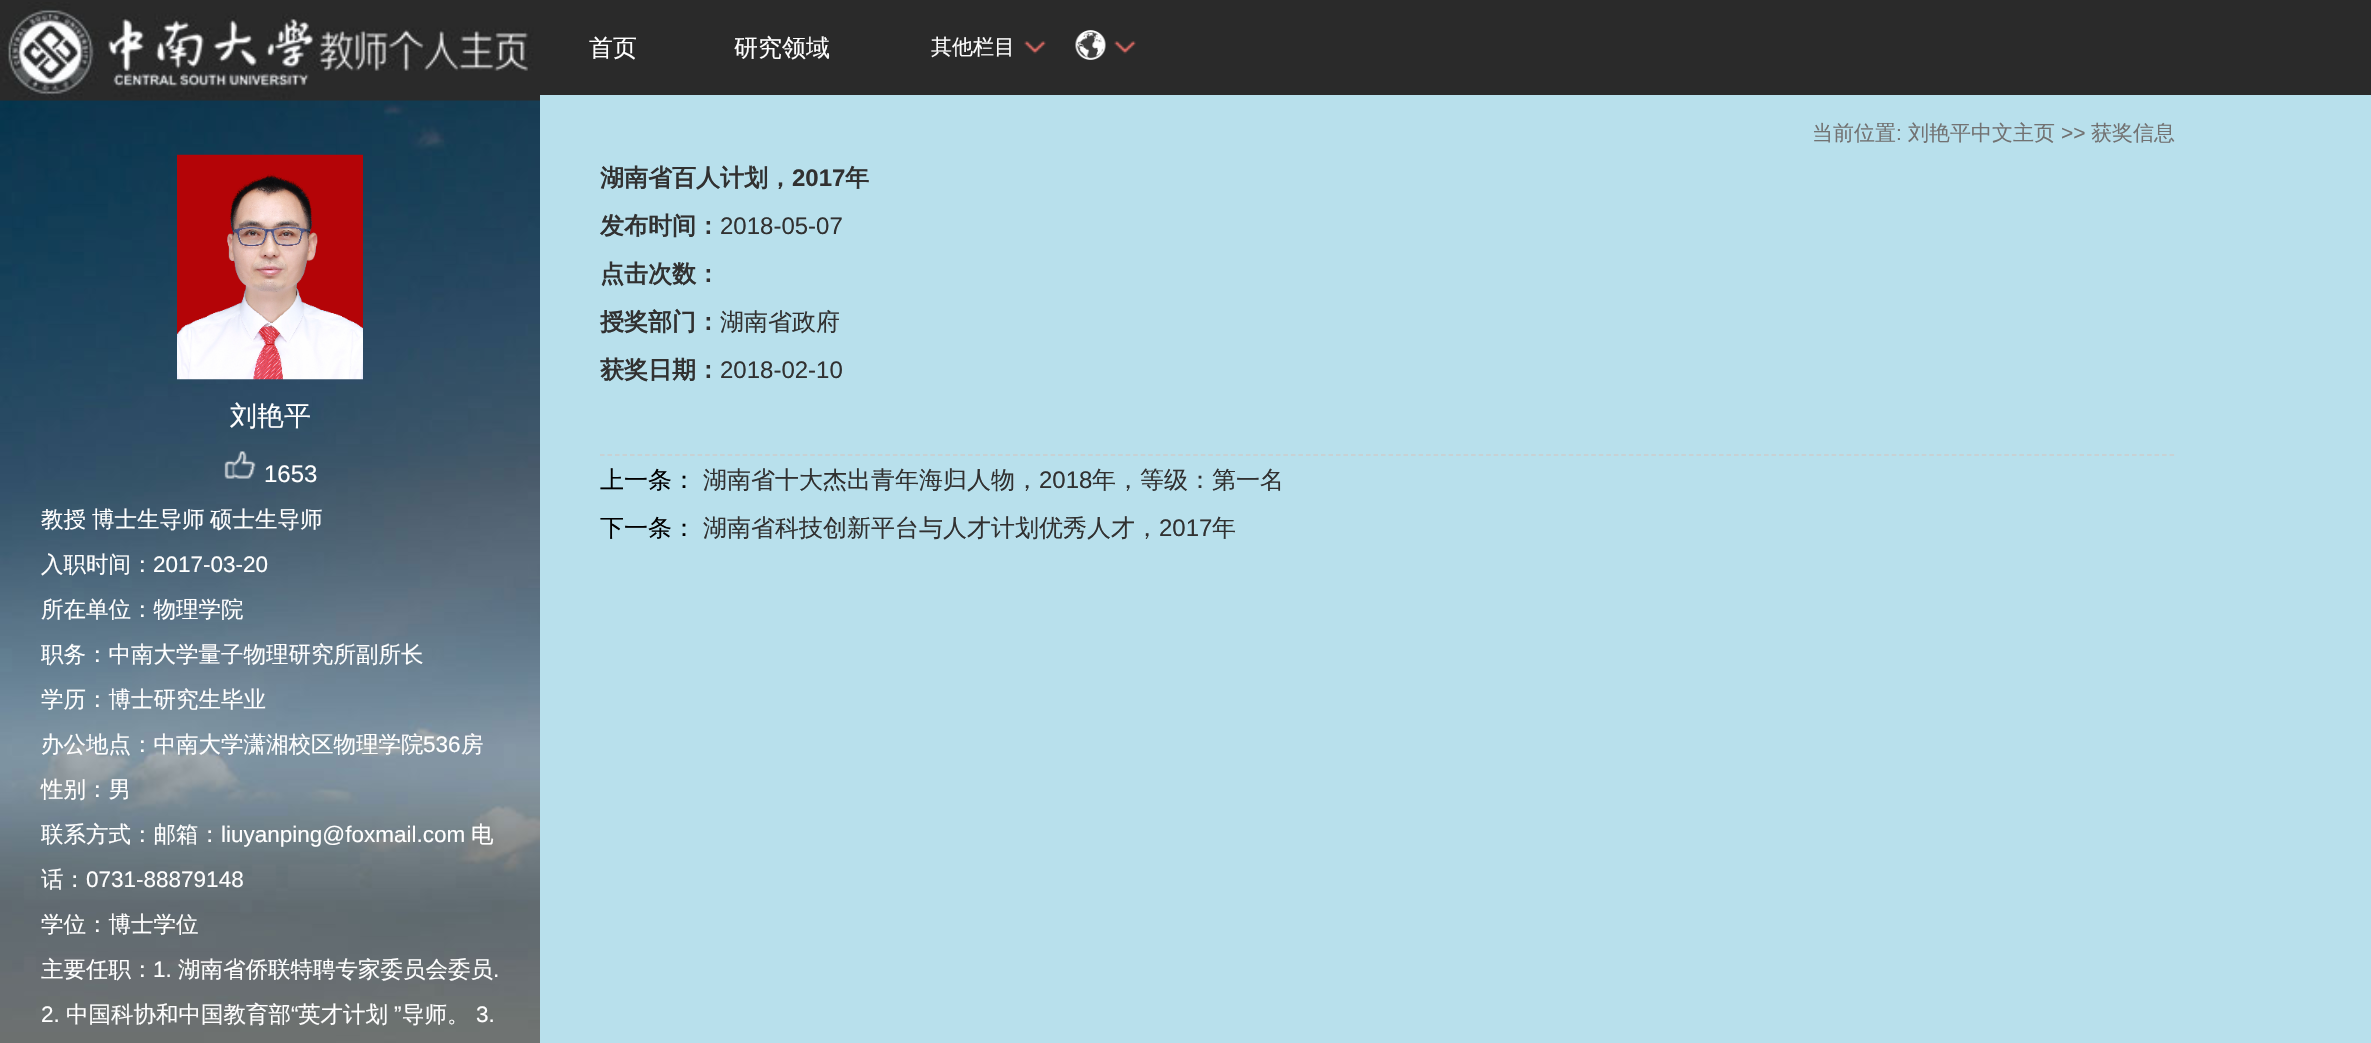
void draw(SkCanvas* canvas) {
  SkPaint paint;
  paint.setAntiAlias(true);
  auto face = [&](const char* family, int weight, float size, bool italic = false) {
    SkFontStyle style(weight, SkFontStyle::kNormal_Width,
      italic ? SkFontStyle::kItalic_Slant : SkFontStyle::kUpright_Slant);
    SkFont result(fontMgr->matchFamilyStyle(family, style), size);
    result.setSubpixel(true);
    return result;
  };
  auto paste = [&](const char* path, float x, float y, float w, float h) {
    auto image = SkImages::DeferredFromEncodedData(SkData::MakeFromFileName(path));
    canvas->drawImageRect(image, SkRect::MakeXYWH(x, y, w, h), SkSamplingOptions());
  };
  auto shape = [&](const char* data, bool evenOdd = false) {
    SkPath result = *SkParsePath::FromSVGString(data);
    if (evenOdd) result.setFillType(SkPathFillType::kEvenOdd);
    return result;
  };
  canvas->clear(0xffb8e0ec);
  paste("img/1.png", 0, 100, 540, 943);
  paint.setColor(0xff2a2a2a);
  canvas->drawRect(SkRect::MakeXYWH(540, 0, 1831, 95), paint);
  paste("img/2.png", 1024, 41, 22, 13);
  paste("img/3.png", 1114, 41, 22, 13);
  paste("img/4.png", 1075, 30, 31, 30);
  paint.setStroke(true);
  paint.setStrokeWidth(1.5f);
  paint.setColor(0xffcccccc);
  paint.setPathEffect(SkDashPathEffect::Make({{4.5f, 3.01f}}, 0));
  canvas->drawPath(shape("M600 455H2175"), paint);
  paint.setPathEffect(nullptr);
  paint.setStroke(false);
  paint.setColor(0xff2a2a2a);
  canvas->drawRect(SkRect::MakeXYWH(0, 0, 540, 2), paint);
  paste("img/5.png", 0, 2, 540, 99);
  paste("img/6.png", 177, 154, 186, 226);
  paste("img/7.png", 224, 451, 32, 28);
  auto f0 = face("WenQuanYi Zen Hei", 500, 24);
  paint.setColor(0xffffffff);
  canvas->drawString("首页", 589, 56, f0, paint);
  canvas->drawString("研究领域", 734, 56, f0, paint);
  auto f1 = face("WenQuanYi Zen Hei", 500, 21);
  canvas->drawString("其他栏目", 931, 54, f1, paint);
  paint.setColor(0xff727272);
  canvas->drawString("当前位置", 1812, 140, f1, paint);
  auto f2 = face("Liberation Sans", 400, 21);
  canvas->drawString(":", 1896, 140, f2, paint);
  canvas->drawString("刘艳平中文主页", 1908, 140, f1, paint);
  canvas->drawString(">>", 2061, 140, f2, paint);
  canvas->drawString("获奖信息", 2091, 140, f1, paint);
  auto f3 = face("WenQuanYi Zen Hei", 700, 24);
  paint.setColor(0xff313131);
  canvas->drawString("湖南省百人计划，", 600, 186, f3, paint);
  auto f4 = face("Liberation Sans", 700, 24);
  canvas->drawString("2017", 792, 186, f4, paint);
  canvas->drawString("年", 845, 186, f3, paint);
  canvas->drawString("发布时间：", 600, 234, f3, paint);
  auto f5 = face("Liberation Sans", 400, 24);
  canvas->drawString("2018-05-07", 720, 234, f5, paint);
  canvas->drawString("点击次数：", 600, 282, f3, paint);
  canvas->drawString("授奖部门：", 600, 330, f3, paint);
  canvas->drawString("湖南省政府", 720, 330, f0, paint);
  canvas->drawString("获奖日期：", 600, 378, f3, paint);
  canvas->drawString("2018-02-10", 720, 378, f5, paint);
  paint.setColor(0xff000000);
  canvas->drawString("上一条：", 600, 488, f0, paint);
  paint.setColor(0xff313131);
  canvas->drawString("湖南省十大杰出青年海归人物，", 703, 488, f0, paint);
  canvas->drawString("2018", 1039, 488, f5, paint);
  canvas->drawString("年，等级：第一名", 1092, 488, f0, paint);
  paint.setColor(0xff000000);
  canvas->drawString("下一条：", 600, 536, f0, paint);
  paint.setColor(0xff313131);
  canvas->drawString("湖南省科技创新平台与人才计划优秀人才，", 703, 536, f0, paint);
  canvas->drawString("2017", 1159, 536, f5, paint);
  canvas->drawString("年", 1212, 536, f0, paint);
  auto f6 = face("WenQuanYi Zen Hei", 500, 27);
  paint.setColor(0xffffffff);
  canvas->drawString("刘艳平", 230, 425, f6, paint);
  canvas->drawString("1653", 264, 482, f5, paint);
  auto f7 = face("WenQuanYi Zen Hei", 500, 22.5f);
  {
    const struct { const char* s; float x, y; } items[] = {
      {"教授", 41, 527},
      {"博士生导师", 92, 527},
      {"硕士生导师", 210, 527},
      {"入职时间：", 41, 572},
    };
    for (auto [s, x, y] : items) {
      canvas->drawString(s, x, y, f7, paint);
    }
  }
  auto f8 = face("Liberation Sans", 400, 22.5f);
  canvas->drawString("2017-03-20", 153, 572, f8, paint);
  {
    const struct { const char* s; float x, y; } items[] = {
      {"所在单位：物理学院", 41, 617},
      {"职务：中南大学量子物理研究所副所长", 41, 662},
      {"学历：博士研究生毕业", 41, 707},
      {"办公地点：中南大学潇湘校区物理学院", 41, 752},
    };
    for (auto [s, x, y] : items) {
      canvas->drawString(s, x, y, f7, paint);
    }
  }
  canvas->drawString("536", 423, 752, f8, paint);
  {
    const struct { const char* s; float x, y; } items[] = {
      {"房", 461, 752},
      {"性别：男", 41, 797},
      {"联系方式：邮箱：", 41, 842},
    };
    for (auto [s, x, y] : items) {
      canvas->drawString(s, x, y, f7, paint);
    }
  }
  canvas->drawString("liuyanping@foxmail.com", 221, 842, f8, paint);
  canvas->drawString("电", 471, 842, f7, paint);
  canvas->drawString("话：", 41, 887, f7, paint);
  canvas->drawString("0731-88879148", 86, 887, f8, paint);
  canvas->drawString("学位：博士学位", 41, 932, f7, paint);
  canvas->drawString("主要任职：", 41, 977, f7, paint);
  canvas->drawString("1.", 153, 977, f8, paint);
  canvas->drawString("湖南省侨联特聘专家委员会委员", 178, 977, f7, paint);
  canvas->drawString(".", 493, 977, f8, paint);
  canvas->drawString("2.", 41, 1022, f8, paint);
  canvas->drawString("中国科协和中国教育部", 66, 1022, f7, paint);
  canvas->drawString("“", 291, 1022, f8, paint);
  canvas->drawString("英才计划", 298, 1022, f7, paint);
  canvas->drawString("”", 394, 1022, f8, paint);
  canvas->drawString("导师。", 402, 1022, f7, paint);
  canvas->drawString("3.", 476, 1022, f8, paint);
}
